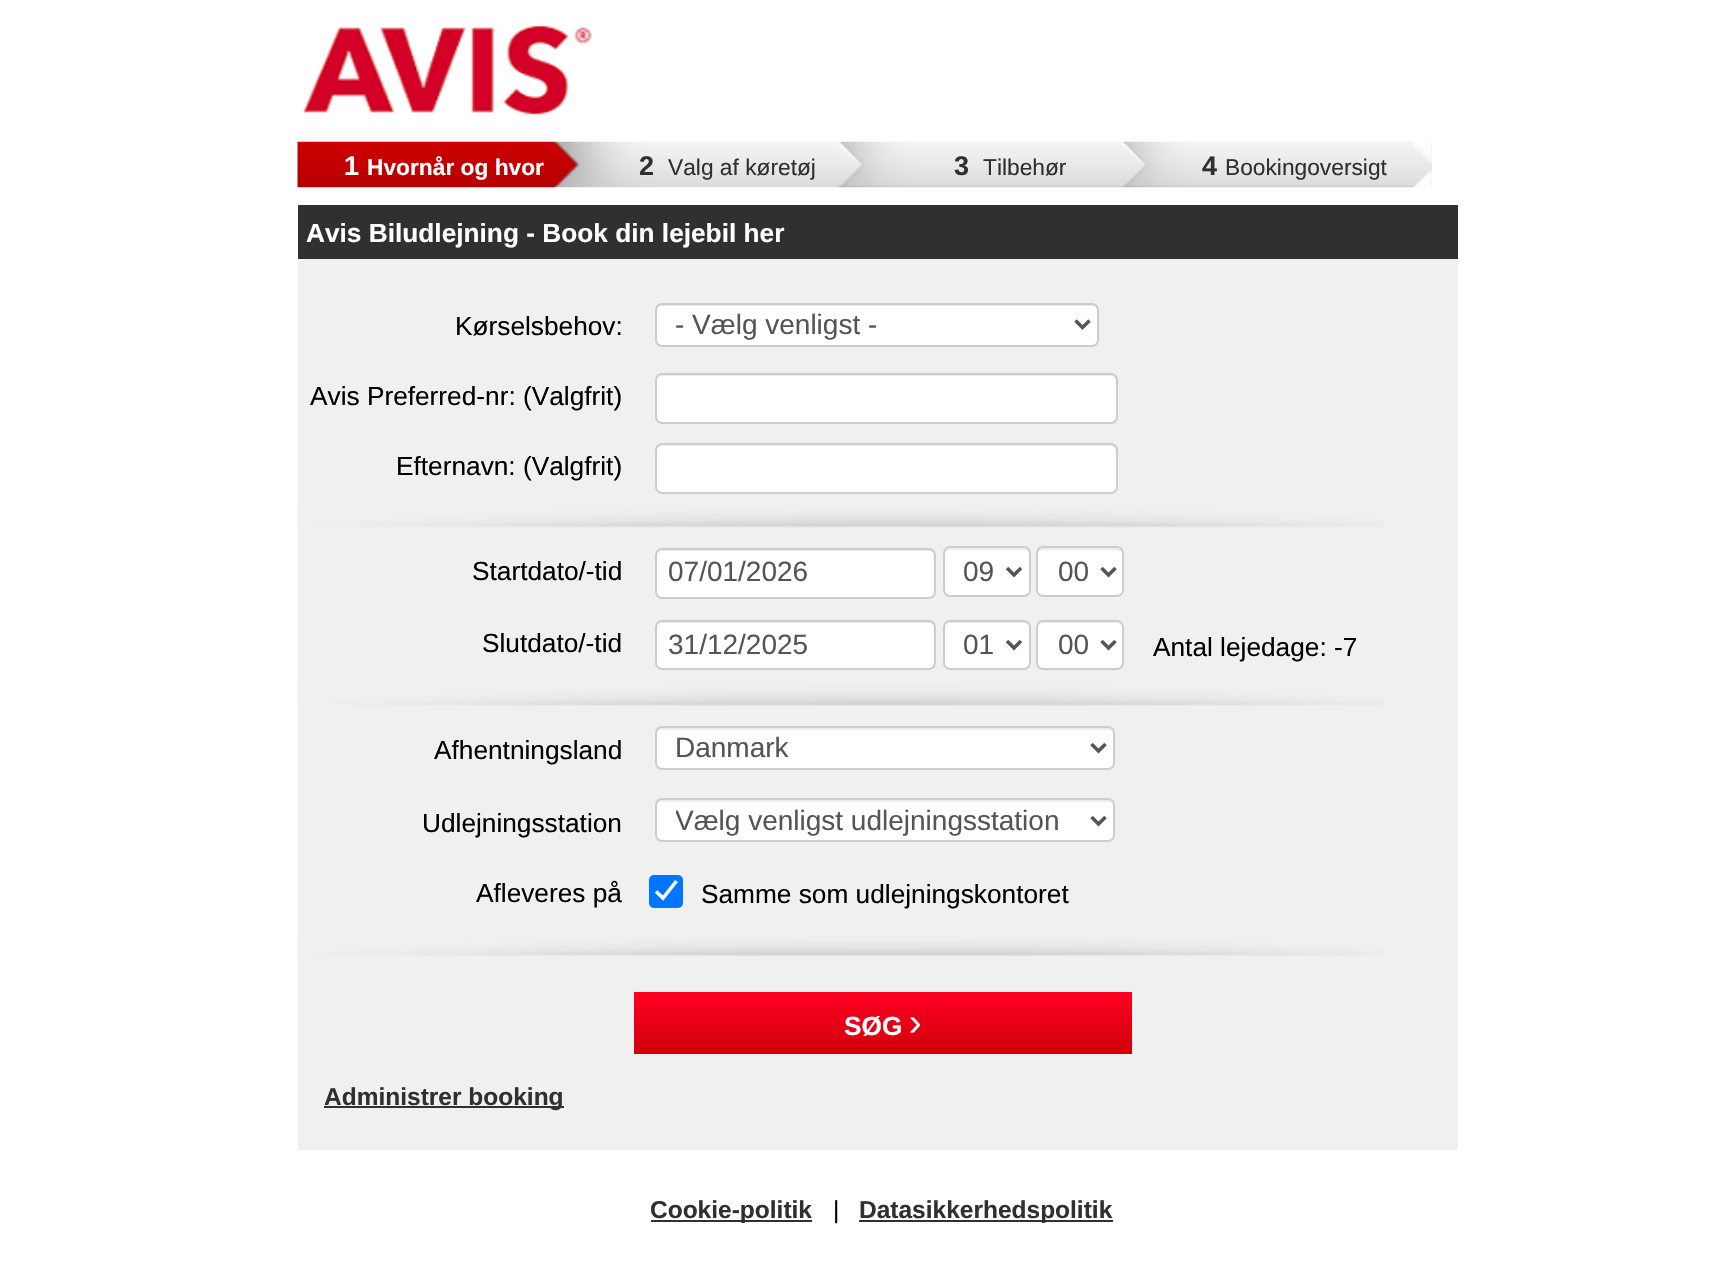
void draw(SkCanvas* canvas) {
  SkPaint paint;
  paint.setAntiAlias(true);
  auto face = [&](const char* family, int weight, float size, bool italic = false) {
    SkFontStyle style(weight, SkFontStyle::kNormal_Width,
      italic ? SkFontStyle::kItalic_Slant : SkFontStyle::kUpright_Slant);
    SkFont result(fontMgr->matchFamilyStyle(family, style), size);
    result.setSubpixel(true);
    return result;
  };
  auto paste = [&](const char* path, float x, float y, float w, float h) {
    auto image = SkImages::DeferredFromEncodedData(SkData::MakeFromFileName(path));
    canvas->drawImageRect(image, SkRect::MakeXYWH(x, y, w, h), SkSamplingOptions());
  };
  auto shape = [&](const char* data, bool evenOdd = false) {
    SkPath result = *SkParsePath::FromSVGString(data);
    if (evenOdd) result.setFillType(SkPathFillType::kEvenOdd);
    return result;
  };
  canvas->clear(0xffffffff);
  paste("img/1.png", 302, 25, 290, 90);
  paint.setColor(0xffe8e8e8);
  canvas->drawRect(SkRect::MakeXYWH(1431, 142, 1, 45), paint);
  paste("img/2.png", 297, 141, 1135, 47);
  paint.setColor(0xfff0f0f0);
  canvas->drawRect(SkRect::MakeXYWH(298, 259, 1160, 891), paint);
  paint.setColor(0xff303030);
  canvas->drawRect(SkRect::MakeXYWH(298, 205, 1160, 54), paint);
  paint.setColor(0xffffffff);
  canvas->drawRoundRect(SkRect::MakeXYWH(655, 303, 444, 44), 7, 7, paint);
  paint.setColor(0xffececec);
  canvas->drawPath(shape("M662 306H1092C1095 306 1097 309 1097 312C1097 309 1096 305 1092 305H661C657 305 656 309 656 312C656 309 659 306 662 306Z"), paint);
  paint.setStroke(true);
  paint.setStrokeWidth(2);
  paint.setColor(0xffcccccc);
  canvas->drawRoundRect(SkRect::MakeXYWH(656, 304, 442, 42), 6, 6, paint);
  paint.setStrokeWidth(3.5f);
  paint.setColor(0xff555555);
  canvas->drawPath(shape("M1075.5 320.5L1082.5 327.5L1089.5 320.5"), paint);
  paint.setStroke(false);
  paint.setColor(0xffffffff);
  canvas->drawRoundRect(SkRect::MakeXYWH(655, 373, 463, 51), 7, 7, paint);
  paint.setColor(0xffececec);
  canvas->drawPath(shape("M662 376H1111C1114 376 1116 379 1116 382V418V421C1116 420 1117 418 1117 417V380C1117 377 1115 375 1112 375H661C658 375 656 377 656 380V382C656 379 659 376 662 376Z"), paint);
  paint.setStroke(true);
  paint.setStrokeWidth(2);
  paint.setColor(0xffcccccc);
  canvas->drawRoundRect(SkRect::MakeXYWH(656, 374, 461, 49), 6, 6, paint);
  paint.setStroke(false);
  paint.setColor(0xffffffff);
  canvas->drawRoundRect(SkRect::MakeXYWH(655, 443, 463, 51), 7, 7, paint);
  paint.setColor(0xffececec);
  canvas->drawPath(shape("M662 446H1111C1114 446 1116 449 1116 452V488V491C1116 490 1117 488 1117 487V450C1117 447 1115 445 1112 445H661C658 445 656 447 656 450V452C656 449 659 446 662 446Z"), paint);
  paint.setStroke(true);
  paint.setColor(0xffcccccc);
  canvas->drawRoundRect(SkRect::MakeXYWH(656, 444, 461, 49), 6, 6, paint);
  paste("img/3.png", 297, 504, 1087, 25);
  paint.setStroke(false);
  paint.setColor(0xffffffff);
  canvas->drawRoundRect(SkRect::MakeXYWH(655, 548, 281, 51), 7, 7, paint);
  paint.setColor(0xffececec);
  canvas->drawPath(shape("M662 551H929C932 551 934 554 934 556V593L933 596C934 595 935 593 935 592V555C935 552 933 550 930 550H661C658 550 656 552 656 555V556C656 554 659 551 662 551Z"), paint);
  paint.setStroke(true);
  paint.setColor(0xffcccccc);
  canvas->drawRoundRect(SkRect::MakeXYWH(656, 549, 279, 49), 6, 6, paint);
  paint.setStroke(false);
  paint.setColor(0xffffffff);
  canvas->drawRoundRect(SkRect::MakeXYWH(943, 546, 88, 51), 7, 7, paint);
  paint.setColor(0xffececec);
  canvas->drawPath(shape("M950 550H1024C1027 550 1029 552 1029 555C1029 545 1020 548 1012 548H962C954 548 945 545 945 555C945 552 947 550 950 550Z"), paint);
  paint.setStroke(true);
  paint.setColor(0xffcccccc);
  canvas->drawRoundRect(SkRect::MakeXYWH(944, 547, 86, 49), 6, 6, paint);
  paint.setStrokeWidth(3.5f);
  paint.setColor(0xff555555);
  canvas->drawPath(shape("M1007 568L1014 575L1021 568"), paint);
  paint.setStroke(false);
  paint.setColor(0xffffffff);
  canvas->drawRoundRect(SkRect::MakeXYWH(1036, 546, 88, 51), 7, 7, paint);
  paint.setColor(0xffececec);
  canvas->drawPath(shape("M1043 550H1116C1119 550 1122 552 1122 555C1122 545 1113 548 1105 548H1055C1047 548 1038 545 1038 555C1038 552 1040 550 1043 550Z"), paint);
  paint.setStroke(true);
  paint.setStrokeWidth(2);
  paint.setColor(0xffcccccc);
  canvas->drawRoundRect(SkRect::MakeXYWH(1037, 547, 86, 49), 6, 6, paint);
  paint.setStrokeWidth(3.5f);
  paint.setColor(0xff555555);
  canvas->drawPath(shape("M1101.5 568L1108.5 575L1115.5 568"), paint);
  paint.setStroke(false);
  paint.setColor(0xffffffff);
  canvas->drawRoundRect(SkRect::MakeXYWH(655, 620, 281, 50), 7, 7, paint);
  paint.setColor(0xffececec);
  canvas->drawPath(shape("M662 623H929C932 623 934 625 934 628V665L933 668C934 667 935 665 935 664V626C935 623 933 621 930 621H661C658 621 656 623 656 626V628C656 625 659 623 662 623Z"), paint);
  paint.setStroke(true);
  paint.setStrokeWidth(2);
  paint.setColor(0xffcccccc);
  canvas->drawRoundRect(SkRect::MakeXYWH(656, 621, 279, 48), 6, 6, paint);
  paint.setStroke(false);
  paint.setColor(0xffffffff);
  canvas->drawRoundRect(SkRect::MakeXYWH(943, 620, 88, 50), 7, 7, paint);
  paint.setColor(0xffececec);
  canvas->drawPath(shape("M950 623H1024C1027 623 1029 625 1029 628C1029 618 1020 621 1012 621H962C954 621 945 618 945 628C945 625 947 623 950 623Z"), paint);
  paint.setStroke(true);
  paint.setColor(0xffcccccc);
  canvas->drawRoundRect(SkRect::MakeXYWH(944, 621, 86, 48), 6, 6, paint);
  paint.setStrokeWidth(3.5f);
  paint.setColor(0xff555555);
  canvas->drawPath(shape("M1007 641L1014 648L1021 641"), paint);
  paint.setStroke(false);
  paint.setColor(0xffffffff);
  canvas->drawRoundRect(SkRect::MakeXYWH(1036, 620, 88, 50), 7, 7, paint);
  paint.setColor(0xffececec);
  canvas->drawPath(shape("M1043 623H1116C1119 623 1122 625 1122 628C1122 618 1113 621 1105 621H1055C1047 621 1038 618 1038 628C1038 625 1040 623 1043 623Z"), paint);
  paint.setStroke(true);
  paint.setStrokeWidth(2);
  paint.setColor(0xffcccccc);
  canvas->drawRoundRect(SkRect::MakeXYWH(1037, 621, 86, 48), 6, 6, paint);
  paint.setStrokeWidth(3.5f);
  paint.setColor(0xff555555);
  canvas->drawPath(shape("M1101.5 641L1108.5 648L1115.5 641"), paint);
  paste("img/4.png", 297, 682, 1087, 25);
  paint.setStroke(false);
  paint.setColor(0xffffffff);
  canvas->drawRoundRect(SkRect::MakeXYWH(655, 726, 460, 44), 7, 7, paint);
  paint.setColor(0xffececec);
  canvas->drawPath(shape("M662 730H1108C1111 730 1113 732 1113 735C1113 732 1112 728 1108 728H661C657 728 656 732 656 735C656 732 659 730 662 730Z"), paint);
  paint.setStroke(true);
  paint.setStrokeWidth(2);
  paint.setColor(0xffcccccc);
  canvas->drawRoundRect(SkRect::MakeXYWH(656, 727, 458, 42), 6, 6, paint);
  paint.setStrokeWidth(3.5f);
  paint.setColor(0xff555555);
  canvas->drawPath(shape("M1091.5 744L1098.5 751L1105.5 744"), paint);
  paint.setStroke(false);
  paint.setColor(0xffffffff);
  canvas->drawRoundRect(SkRect::MakeXYWH(655, 798, 460, 44), 7, 7, paint);
  paint.setColor(0xffececec);
  canvas->drawPath(shape("M662 802H1108C1111 802 1113 804 1113 807C1113 804 1112 800 1108 800H661C657 800 656 804 656 807C656 804 659 802 662 802Z"), paint);
  paint.setStroke(true);
  paint.setStrokeWidth(2);
  paint.setColor(0xffcccccc);
  canvas->drawRoundRect(SkRect::MakeXYWH(656, 799, 458, 42), 6, 6, paint);
  paint.setStrokeWidth(3.5f);
  paint.setColor(0xff555555);
  canvas->drawPath(shape("M1091.5 817L1098.5 824L1105.5 817"), paint);
  paint.setStroke(false);
  paint.setColor(0xff0075ff);
  canvas->drawRoundRect(SkRect::MakeXYWH(649, 875, 34, 33), 5, 5, paint);
  paint.setStroke(true);
  paint.setStrokeWidth(3.6f);
  paint.setColor(0xffffffff);
  canvas->drawPath(shape("M656 891.5L663 898L676.5 881"), paint);
  paste("img/5.png", 297, 933, 1087, 24);
  paint.setStroke(false);
  {
    const SkColor colors[] = {0xffff0022, 0xffd0000a};
    const float stops[] = {0, 1};
    const SkPoint ends[] = {{883, 992}, {883, 1054}};
    paint.setShader(SkGradientShader::MakeLinear(ends, colors, stops, 2, SkTileMode::kClamp));
    paint.setAlpha(255);
  }
  canvas->drawRect(SkRect::MakeXYWH(634, 992, 498, 62), paint);
  paint.setShader(nullptr);
  {
    const struct { float x, y, w, h; SkColor color; } items[] = {
      {324, 1106, 240, 2, 0xff303030},
      {651, 1220, 161, 2, 0xff303030},
      {859, 1220, 254, 2, 0xff303030},
    };
    for (auto [x, y, w, h, color] : items) {
      paint.setColor(color);
      canvas->drawRect(SkRect::MakeXYWH(x, y, w, h), paint);
    }
  }
  auto f0 = face("Liberation Sans", 700, 27);
  paint.setColor(0xffffffff);
  canvas->drawString("1", 344, 175, f0, paint);
  auto f1 = face("Liberation Sans", 700, 22.75f);
  canvas->drawString("Hvornår og hvor", 367, 175, f1, paint);
  paint.setColor(0xff303030);
  canvas->drawString("2", 639, 175, f0, paint);
  auto f2 = face("Liberation Sans", 400, 22.75f);
  canvas->drawString("Valg af køretøj", 668, 175, f2, paint);
  canvas->drawString("3", 954, 175, f0, paint);
  canvas->drawString("Tilbehør", 983, 175, f2, paint);
  canvas->drawString("4", 1202, 175, f0, paint);
  canvas->drawString("Bookingoversigt", 1225, 175, f2, paint);
  auto f3 = face("Liberation Sans", 700, 26.25f);
  paint.setColor(0xffffffff);
  canvas->drawString("Avis Biludlejning - Book din lejebil her", 306, 242, f3, paint);
  auto f4 = face("Liberation Sans", 400, 26.25f);
  paint.setColor(0xff000000);
  canvas->drawString("Kørselsbehov:", 455, 335, f4, paint);
  auto f5 = face("Liberation Sans", 400, 28);
  paint.setColor(0xff555555);
  canvas->drawString("- Vælg venligst -", 675, 334, f5, paint);
  paint.setColor(0xff000000);
  {
    const struct { const char* s; float x, y; } items[] = {
      {"Avis Preferred-nr: (Valgfrit)", 310, 405},
      {"Efternavn: (Valgfrit)", 396, 475},
      {"Startdato/-tid", 472, 580},
    };
    for (auto [s, x, y] : items) {
      canvas->drawString(s, x, y, f4, paint);
    }
  }
  paint.setColor(0xff555555);
  {
    const struct { const char* s; float x, y; } items[] = {
      {"07/01/2026", 668, 581},
      {"09", 963, 581},
      {"00", 1058, 581},
    };
    for (auto [s, x, y] : items) {
      canvas->drawString(s, x, y, f5, paint);
    }
  }
  paint.setColor(0xff000000);
  canvas->drawString("Slutdato/-tid", 482, 652, f4, paint);
  paint.setColor(0xff555555);
  {
    const struct { const char* s; float x, y; } items[] = {
      {"31/12/2025", 668, 654},
      {"01", 963, 654},
      {"00", 1058, 654},
    };
    for (auto [s, x, y] : items) {
      canvas->drawString(s, x, y, f5, paint);
    }
  }
  paint.setColor(0xff000000);
  canvas->drawString("Antal lejedage: -7", 1153, 656, f4, paint);
  canvas->drawString("Afhentningsland", 434, 759, f4, paint);
  paint.setColor(0xff555555);
  canvas->drawString("Danmark", 675, 757, f5, paint);
  paint.setColor(0xff000000);
  canvas->drawString("Udlejningsstation", 422, 832, f4, paint);
  canvas->save();
  canvas->clipRect(SkRect::MakeXYWH(676, 803, 409, 34));
  paint.setColor(0xff555555);
  canvas->drawString("Vælg venligst udlejningsstation", 675, 830, f5, paint);
  canvas->restore();
  paint.setColor(0xff000000);
  canvas->drawString("Afleveres på", 476, 902, f4, paint);
  canvas->drawString("Samme som udlejningskontoret", 701, 903, f4, paint);
  paint.setColor(0xffffffff);
  canvas->drawString("SØG", 844, 1035, f3, paint);
  auto f6 = face("Liberation Sans", 400, 38);
  canvas->drawString("›", 909, 1035, f6, paint);
  auto f7 = face("Liberation Sans", 700, 24.5f);
  paint.setColor(0xff303030);
  canvas->drawString("Administrer booking", 324, 1105, f7, paint);
  canvas->drawString("Cookie-politik", 650, 1218, f7, paint);
  auto f8 = face("Liberation Sans", 400, 24.5f);
  paint.setColor(0xff000000);
  canvas->drawString("|", 833, 1218, f8, paint);
  paint.setColor(0xff303030);
  canvas->drawString("Datasikkerhedspolitik", 859, 1218, f7, paint);
}
